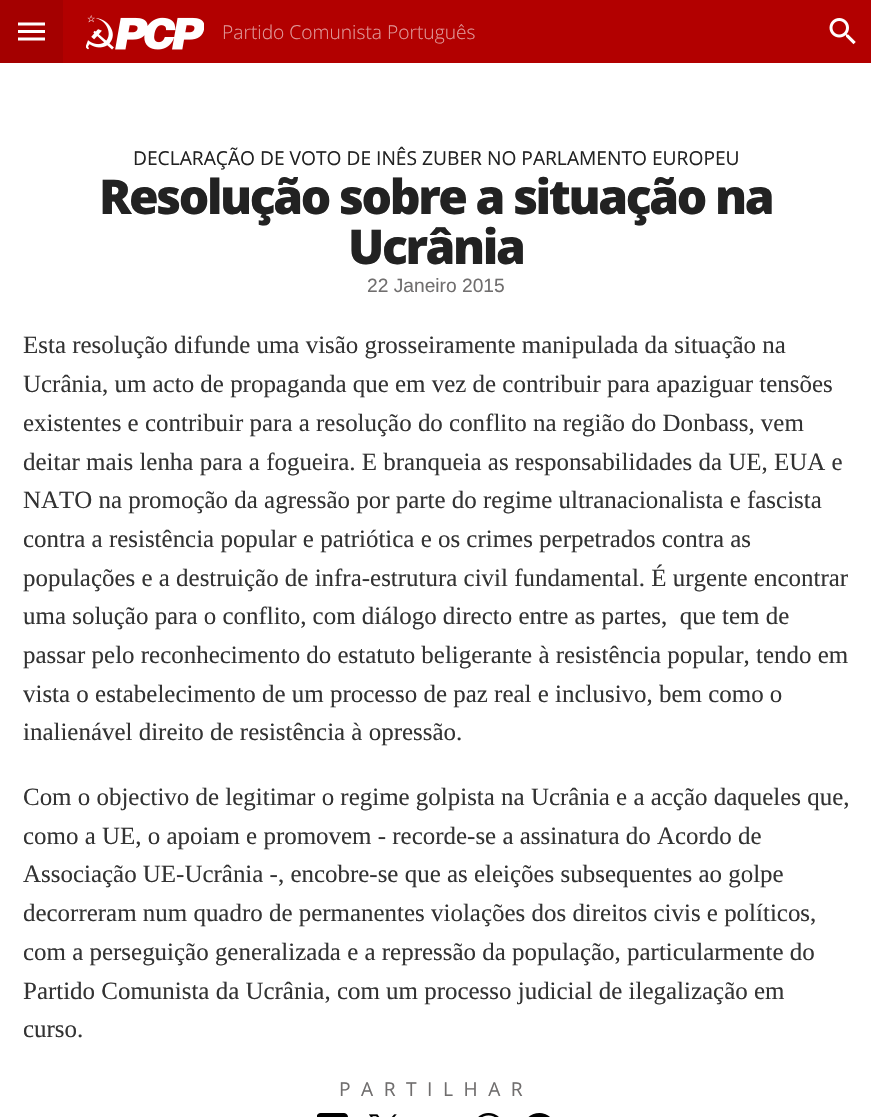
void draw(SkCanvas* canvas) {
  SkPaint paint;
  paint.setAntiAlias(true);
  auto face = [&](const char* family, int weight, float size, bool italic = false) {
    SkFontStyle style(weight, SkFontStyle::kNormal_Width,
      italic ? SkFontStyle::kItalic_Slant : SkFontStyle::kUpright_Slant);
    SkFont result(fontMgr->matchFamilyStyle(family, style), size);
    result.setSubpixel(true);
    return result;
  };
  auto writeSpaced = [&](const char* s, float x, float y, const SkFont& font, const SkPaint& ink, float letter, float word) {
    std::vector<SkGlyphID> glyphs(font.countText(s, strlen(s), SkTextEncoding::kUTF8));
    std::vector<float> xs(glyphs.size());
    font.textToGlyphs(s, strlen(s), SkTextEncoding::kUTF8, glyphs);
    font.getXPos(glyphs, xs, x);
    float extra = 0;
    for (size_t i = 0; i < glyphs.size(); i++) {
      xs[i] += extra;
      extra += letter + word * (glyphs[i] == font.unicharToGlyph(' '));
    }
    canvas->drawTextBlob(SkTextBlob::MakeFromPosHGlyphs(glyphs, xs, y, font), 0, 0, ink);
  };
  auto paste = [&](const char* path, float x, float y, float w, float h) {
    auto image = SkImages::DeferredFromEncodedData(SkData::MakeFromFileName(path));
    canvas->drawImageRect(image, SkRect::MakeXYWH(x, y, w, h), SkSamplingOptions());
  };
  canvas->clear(0xffffffff);
  paint.setColor(0xffb20000);
  canvas->drawRect(SkRect::MakeXYWH(63, 0, 808, 63), paint);
  paint.setColor(0xffa40000);
  canvas->drawRect(SkRect::MakeXYWH(0, 0, 63, 63), paint);
  paste("img/1.png", 18, 22, 27, 19);
  paste("img/2.png", 86, 15, 118, 35);
  paste("img/3.png", 829, 18, 27, 27);
  paste("img/4.png", 317, 1113, 31, 4);
  paste("img/5.png", 369, 1114, 28, 3);
  paste("img/6.png", 478, 1113, 21, 4);
  paste("img/7.png", 528, 1113, 22, 4);
  auto f0 = face("Open Sans", 300, 19.2f);
  paint.setColor(0xffe09999);
  canvas->drawString("Partido Comunista Português", 222, 39, f0, paint);
  auto f1 = face("Open Sans", 400, 19.2f);
  paint.setColor(0xff222222);
  canvas->drawString("DECLARAÇÃO DE VOTO DE INÊS ZUBER NO PARLAMENTO EUROPEU", 133, 165, f1, paint);
  auto f2 = face("Open Sans", 800, 48);
  writeSpaced("Resolução sobre a situação na", 99, 214, f2, paint, -2.4f, 0);
  writeSpaced("Ucrânia", 348, 264, f2, paint, -2.4f, 0);
  auto f3 = face("Liberation Sans", 400, 19.2f);
  paint.setColor(0xff706e6e);
  canvas->drawString("22 Janeiro 2015", 367, 292, f3, paint);
  auto f4 = face("Liberation Serif", 400, 24.95f);
  paint.setColor(0xff333333);
  {
    const struct { const char* s; float x, y; } items[] = {
      {"Esta resolução difunde uma visão grosseiramente manipulada da situação na", 23, 353},
      {"Ucrânia, um acto de propaganda que em vez de contribuir para apaziguar tensões", 23, 392},
      {"existentes e contribuir para a resolução do conflito na região do Donbass, vem", 23, 431},
      {"deitar mais lenha para a fogueira. E branqueia as responsabilidades da UE, EUA e", 23, 470},
      {"NATO na promoção da agressão por parte do regime ultranacionalista e fascista", 23, 508},
      {"contra a resistência popular e patriótica e os crimes perpetrados contra as", 23, 547},
      {"populações e a destruição de infra-estrutura civil fundamental. É urgente encontrar", 23, 586},
      {"uma solução para o conflito, com diálogo directo entre as partes,  que tem de", 23, 624},
      {"passar pelo reconhecimento do estatuto beligerante à resistência popular, tendo em", 23, 663},
      {"vista o estabelecimento de um processo de paz real e inclusivo, bem como o", 23, 702},
      {"inalienável direito de resistência à opressão.", 23, 740},
      {"Com o objectivo de legitimar o regime golpista na Ucrânia e a acção daqueles que,", 23, 805},
      {"como a UE, o apoiam e promovem - recorde-se a assinatura do Acordo de", 23, 844},
      {"Associação UE-Ucrânia -, encobre-se que as eleições subsequentes ao golpe", 23, 882},
      {"decorreram num quadro de permanentes violações dos direitos civis e políticos,", 23, 921},
      {"com a perseguição generalizada e a repressão da população, particularmente do", 23, 960},
      {"Partido Comunista da Ucrânia, com um processo judicial de ilegalização em", 23, 999},
      {"curso.", 23, 1037},
    };
    for (auto [s, x, y] : items) {
      canvas->drawString(s, x, y, f4, paint);
    }
  }
  paint.setColor(0xff706e6e);
  writeSpaced("PARTILHAR", 339, 1096, f1, paint, 10.5f, 0);
}
